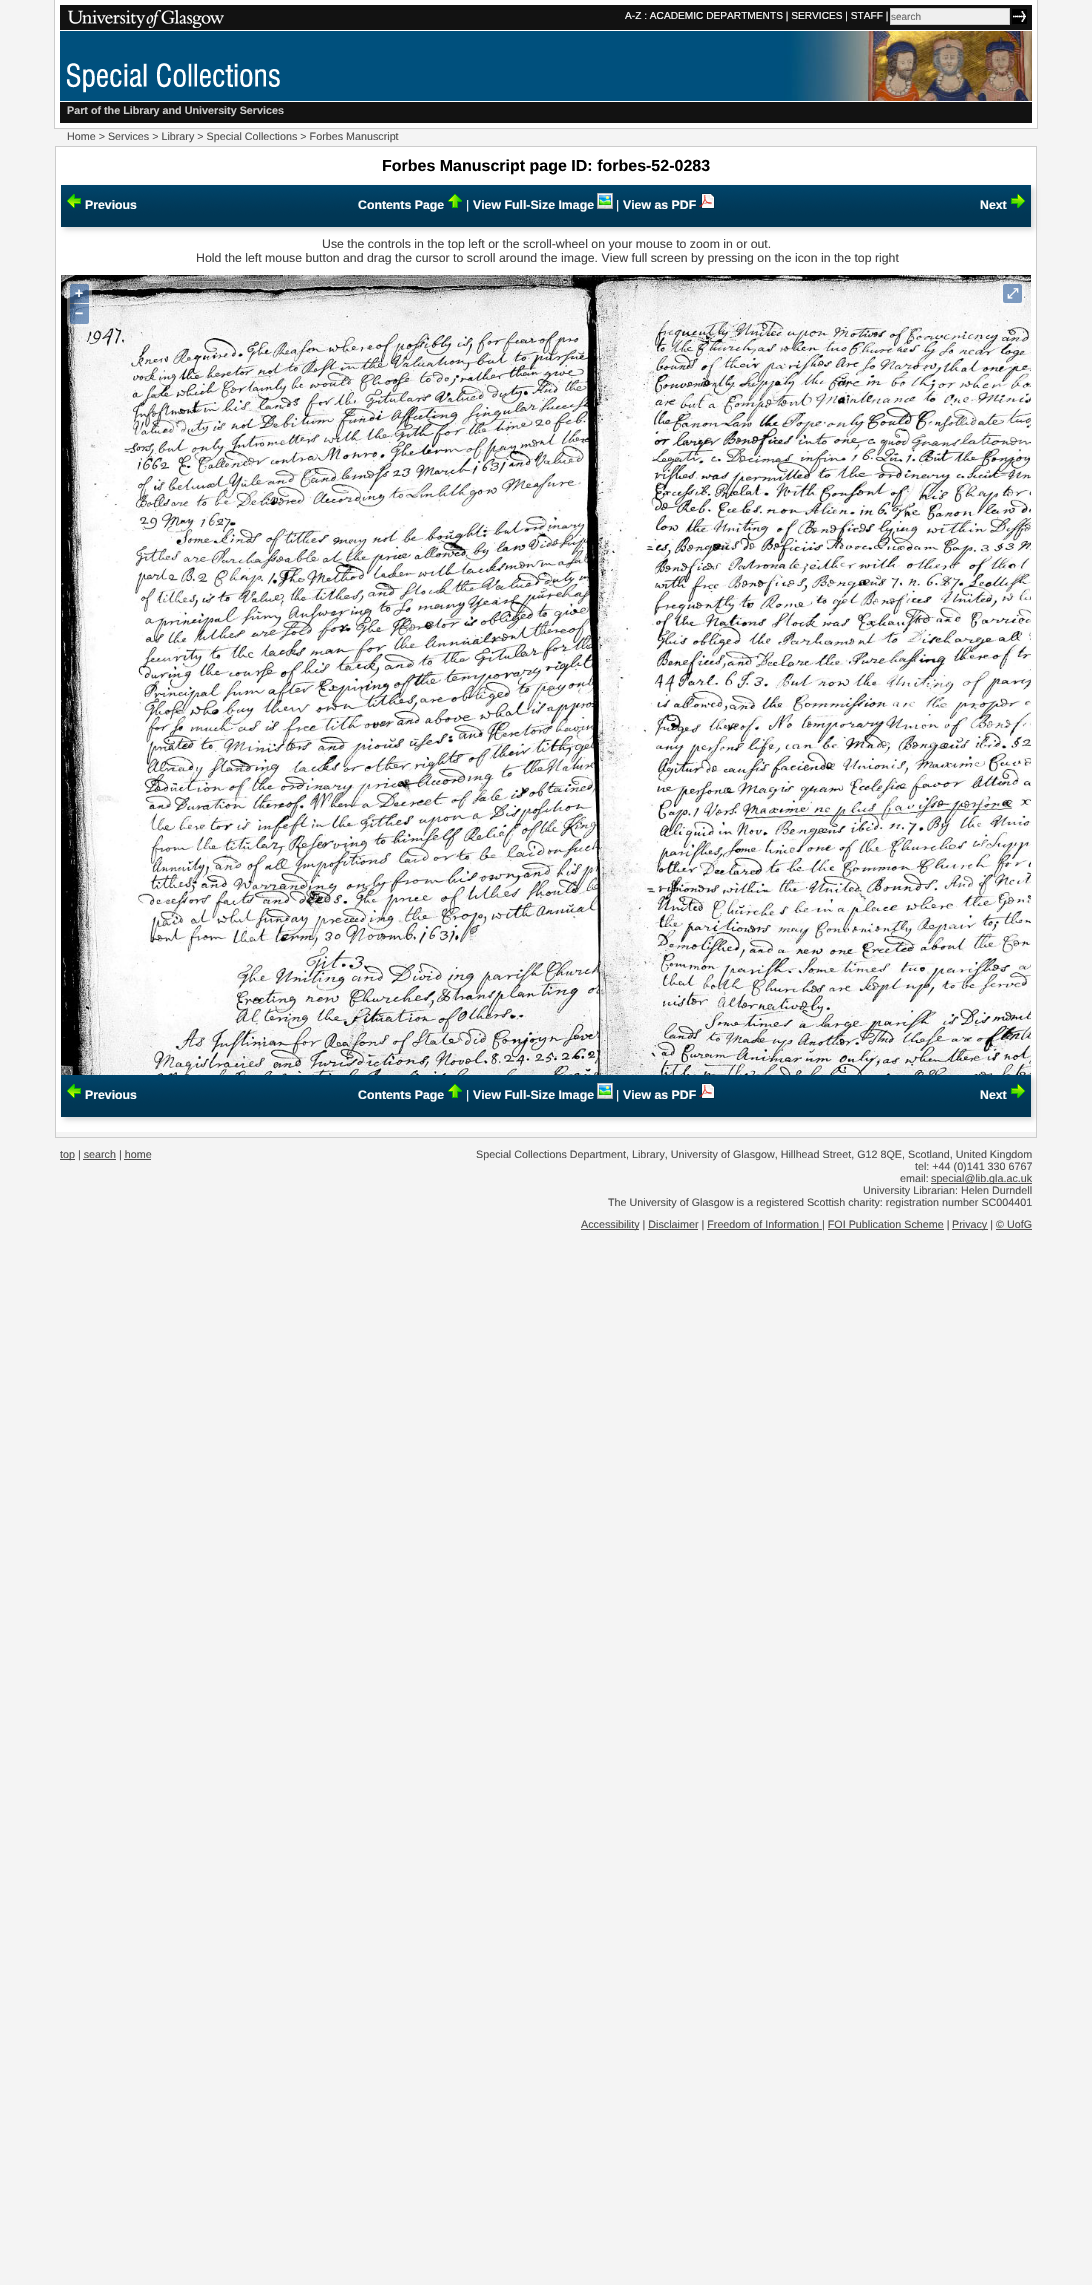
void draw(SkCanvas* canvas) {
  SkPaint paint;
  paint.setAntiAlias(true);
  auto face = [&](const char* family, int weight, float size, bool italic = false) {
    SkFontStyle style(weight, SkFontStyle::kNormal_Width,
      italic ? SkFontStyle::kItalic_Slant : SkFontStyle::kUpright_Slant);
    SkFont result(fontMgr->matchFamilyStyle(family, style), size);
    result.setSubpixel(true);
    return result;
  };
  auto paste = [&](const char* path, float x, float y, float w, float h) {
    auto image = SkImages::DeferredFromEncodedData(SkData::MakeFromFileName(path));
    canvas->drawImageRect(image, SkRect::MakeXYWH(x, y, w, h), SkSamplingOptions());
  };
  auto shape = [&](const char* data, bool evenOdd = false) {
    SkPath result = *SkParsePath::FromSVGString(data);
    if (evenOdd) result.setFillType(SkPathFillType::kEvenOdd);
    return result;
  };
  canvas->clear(0xfff4f4f4);
  {
    const struct { float x, y, w, h; SkColor color; } items[] = {
      {55, 0, 982, 128, 0xffffffff},
      {1037, 0, 1, 129, 0xffcccccc},
      {54, 128, 984, 1, 0xffcccccc},
      {54, 0, 1, 129, 0xffcccccc},
      {60, 5, 972, 25, 0xff121212},
    };
    for (auto [x, y, w, h, color] : items) {
      paint.setColor(color);
      canvas->drawRect(SkRect::MakeXYWH(x, y, w, h), paint);
    }
  }
  paste("img/1.png", 68, 10, 156, 18);
  paint.setColor(0xffefefef);
  canvas->drawRect(SkRect::MakeXYWH(890.5f, 8.5f, 119, 16), paint);
  paint.setStroke(true);
  paint.setStrokeWidth(1);
  paint.setColor(0xffcccccc);
  canvas->drawRect(SkRect::MakeXYWH(890.5f, 8.5f, 119, 16), paint);
  paste("img/2.png", 1012, 9, 15, 15);
  paste("img/3.png", 60, 31, 972, 70);
  paste("img/4.png", 66, 63, 214, 30);
  paint.setStroke(false);
  paint.setColor(0xff121212);
  canvas->drawRect(SkRect::MakeXYWH(60, 102, 972, 21), paint);
  paint.setStroke(true);
  paint.setColor(0xffcccccc);
  canvas->drawRect(SkRect::MakeXYWH(55.5f, 146.5f, 981, 991), paint);
  paint.setStroke(false);
  paint.setColor(0xffffffff);
  canvas->drawRect(SkRect::MakeXYWH(56, 147, 980, 985), paint);
  paint.setColor(0x26000000);
  paint.setMaskFilter(SkMaskFilter::MakeBlur(kNormal_SkBlurStyle, 2.5f));
  canvas->drawRect(SkRect::MakeXYWH(64, 188, 970, 42), paint);
  paint.setMaskFilter(nullptr);
  paste("img/5.png", 61, 185, 970, 42);
  paste("img/6.png", 67, 194, 14, 14);
  paste("img/7.png", 448, 194, 14, 14);
  paste("img/8.png", 597, 193, 16, 16);
  paste("img/9.png", 699, 193, 16, 16);
  paste("img/10.png", 1011, 194, 14, 14);
  paint.setMaskFilter(SkMaskFilter::MakeBlur(kNormal_SkBlurStyle, 2.5f));
  canvas->drawRect(SkRect::MakeXYWH(64, 1078, 970, 42), paint);
  paint.setMaskFilter(nullptr);
  paste("img/11.png", 61, 275, 970, 800);
  paint.setColor(0x66ffffff);
  canvas->drawRoundRect(SkRect::MakeXYWH(67, 281, 25, 46), 4, 4, paint);
  paint.setColor(0x80003c88);
  canvas->drawPath(shape("M72 284H87C88 284 89 285 89 286V303H70V286C70 285 71 284 72 284Z"), paint);
  canvas->drawPath(shape("M70 304H89V322C89 323 88 324 87 324H72C71 324 70 323 70 322Z"), paint);
  paint.setColor(0x66ffffff);
  canvas->drawRoundRect(SkRect::MakeXYWH(1000, 281, 25, 25), 4, 4, paint);
  paint.setColor(0x80003c88);
  canvas->drawRoundRect(SkRect::MakeXYWH(1003, 284, 19, 19), 2, 2, paint);
  paste("img/5.png", 61, 1075, 970, 42);
  paste("img/6.png", 67, 1084, 14, 14);
  paste("img/7.png", 448, 1084, 14, 14);
  paste("img/8.png", 597, 1083, 16, 16);
  paste("img/9.png", 699, 1083, 16, 16);
  paste("img/10.png", 1011, 1084, 14, 14);
  {
    const struct { float x, y, w, h; SkColor color; } items[] = {
      {60, 1159, 15, 1, 0xff4c4c4c},
      {83, 1159, 33, 1, 0xff4c4c4c},
      {124, 1159, 27, 1, 0xff4c4c4c},
      {931, 1183, 101, 1, 0xff4c4c4c},
      {581, 1229, 58, 1, 0xff4c4c4c},
      {952, 1229, 36, 1, 0xff4c4c4c},
      {648, 1229, 50, 1, 0xff4c4c4c},
      {707, 1229, 115, 1, 0xff4c4c4c},
      {828, 1229, 116, 1, 0xff4c4c4c},
      {996, 1229, 36, 1, 0xff4c4c4c},
    };
    for (auto [x, y, w, h, color] : items) {
      paint.setColor(color);
      canvas->drawRect(SkRect::MakeXYWH(x, y, w, h), paint);
    }
  }
  auto f0 = face("Liberation Sans", 400, 10.15f);
  paint.setColor(0xffffffff);
  canvas->drawString("A-Z : ACADEMIC DEPARTMENTS | SERVICES | STAFF |", 625, 19, f0, paint);
  auto f1 = face("Liberation Sans", 400, 10);
  paint.setColor(0xff666666);
  canvas->drawString("search", 891, 20, f1, paint);
  auto f2 = face("Liberation Sans", 700, 10.75f);
  paint.setColor(0xffcccccc);
  canvas->drawString("Part of the Library and University Services", 67, 114, f2, paint);
  auto f3 = face("Liberation Sans", 400, 10.75f);
  paint.setColor(0xff4c4c4c);
  canvas->drawString("Home > Services > Library > Special Collections > Forbes Manuscript", 67, 140, f3, paint);
  auto f4 = face("Liberation Sans", 700, 16);
  paint.setColor(0xff000000);
  canvas->drawString("Forbes Manuscript page ID: forbes-52-0283", 382, 171, f4, paint);
  auto f5 = face("Liberation Sans", 700, 12.3f);
  paint.setColor(0xffffffff);
  canvas->drawString("Previous", 85, 209, f5, paint);
  canvas->drawString("Contents Page", 358, 209, f5, paint);
  auto f6 = face("Liberation Sans", 400, 12.3f);
  canvas->drawString("|", 466, 209, f6, paint);
  canvas->drawString("View Full-Size Image", 473, 209, f5, paint);
  canvas->drawString("|", 616, 209, f6, paint);
  canvas->drawString("View as PDF", 623, 209, f5, paint);
  canvas->drawString("Next", 980, 209, f5, paint);
  paint.setColor(0xff404040);
  canvas->drawString("Use the controls in the top left or the scroll-wheel on your mouse to zoom in or out.", 322, 248, f6, paint);
  canvas->drawString("Hold the left mouse button and drag the cursor to scroll around the image. View full screen by pressing on the icon in the top right", 196, 262, f6, paint);
  auto f7 = face("Liberation Sans", 700, 14);
  paint.setColor(0xffffffff);
  canvas->drawString("+", 75, 298, f7, paint);
  canvas->drawString("−", 75, 318, f7, paint);
  auto f8 = face("FreeSerif", 700, 14);
  canvas->drawString("⤢", 1007, 298, f8, paint);
  canvas->drawString("Previous", 85, 1099, f5, paint);
  canvas->drawString("Contents Page", 358, 1099, f5, paint);
  canvas->drawString("|", 466, 1099, f6, paint);
  canvas->drawString("View Full-Size Image", 473, 1099, f5, paint);
  canvas->drawString("|", 616, 1099, f6, paint);
  canvas->drawString("View as PDF", 623, 1099, f5, paint);
  canvas->drawString("Next", 980, 1099, f5, paint);
  paint.setColor(0xff4c4c4c);
  {
    const struct { const char* s; float x, y; } items[] = {
      {"top | search | home", 60, 1158},
      {"Special Collections Department, Library, University of Glasgow, Hillhead Street, G12 8QE, Scotland, United Kingdom", 476, 1158},
      {"tel: +44 (0)141 330 6767", 915, 1170},
      {"email:", 900, 1182},
      {"special@lib.gla.ac.uk", 931, 1182},
      {"University Librarian: Helen Durndell", 863, 1194},
      {"The University of Glasgow is a registered Scottish charity: registration number SC004401", 608, 1206},
      {"Accessibility | Disclaimer | Freedom of Information | FOI Publication Scheme |", 581, 1228},
      {"Privacy | © UofG", 952, 1228},
    };
    for (auto [s, x, y] : items) {
      canvas->drawString(s, x, y, f3, paint);
    }
  }
}
